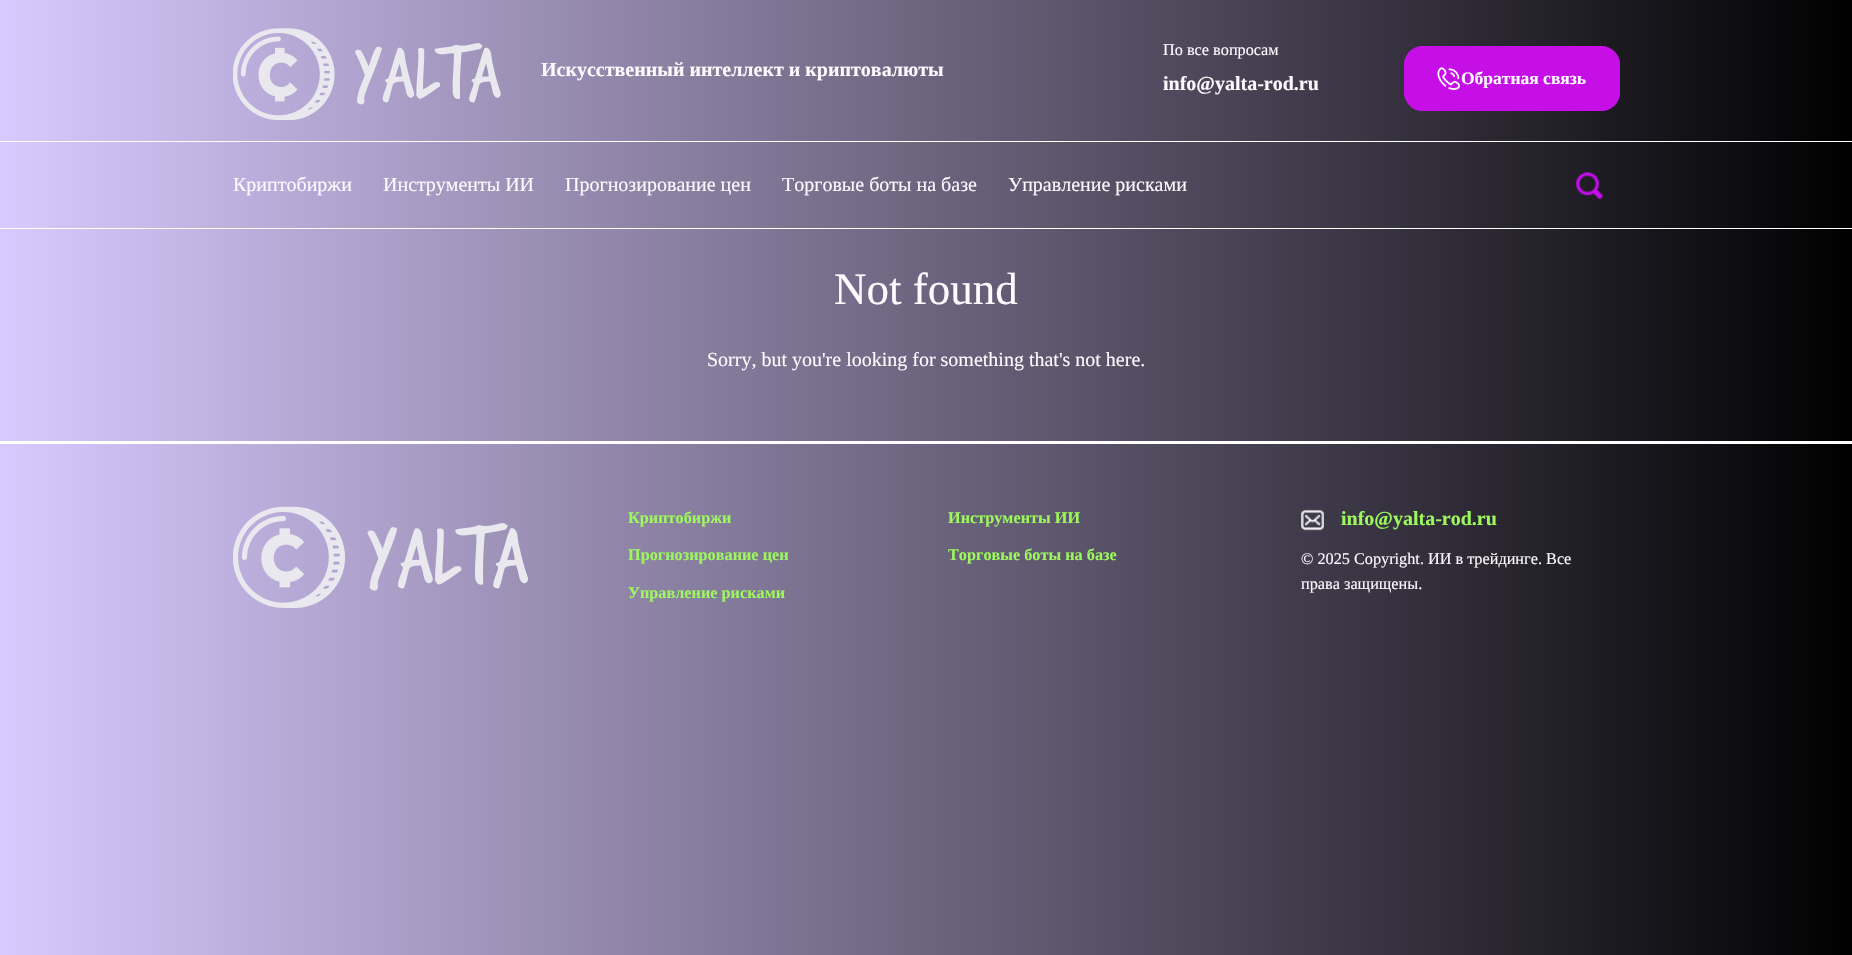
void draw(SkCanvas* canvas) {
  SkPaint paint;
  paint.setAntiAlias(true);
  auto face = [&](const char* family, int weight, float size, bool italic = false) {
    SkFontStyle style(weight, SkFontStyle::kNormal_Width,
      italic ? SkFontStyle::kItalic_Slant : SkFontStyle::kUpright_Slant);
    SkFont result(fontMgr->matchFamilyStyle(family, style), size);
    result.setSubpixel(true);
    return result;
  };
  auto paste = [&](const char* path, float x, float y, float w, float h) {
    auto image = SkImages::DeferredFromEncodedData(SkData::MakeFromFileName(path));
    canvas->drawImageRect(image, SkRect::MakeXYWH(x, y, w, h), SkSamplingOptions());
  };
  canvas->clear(0xffffffff);
  {
    const SkColor colors[] = {0xffd9c9fe, 0xff000000};
    const float stops[] = {0, 1};
    const SkPoint ends[] = {{0, 328}, {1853, 328}};
    paint.setShader(SkGradientShader::MakeLinear(ends, colors, stops, 2, SkTileMode::kClamp));
    paint.setAlpha(255);
  }
  canvas->drawRect(SkRect::MakeXYWH(0, 0, 1852, 955), paint);
  paste("img/1.png", 233, 28, 268, 92);
  paint.setShader(nullptr);
  paint.setColor(0xffc60fe7);
  canvas->drawRoundRect(SkRect::MakeXYWH(1404, 46, 216, 65), 19, 19, paint);
  paste("img/2.png", 1437, 67, 23, 23);
  paint.setStroke(true);
  paint.setStrokeWidth(3);
  canvas->drawRoundRect(SkRect::MakeXYWH(1405.5f, 47.5f, 213, 62), 17.5f, 17.5f, paint);
  paint.setStroke(false);
  paint.setColor(0xffffffff);
  canvas->drawRect(SkRect::MakeXYWH(0, 141, 1852, 1), paint);
  canvas->drawRect(SkRect::MakeXYWH(0, 228, 1852, 1), paint);
  paste("img/3.png", 1576, 172, 27, 27);
  canvas->drawRect(SkRect::MakeXYWH(0, 441, 1852, 3), paint);
  paste("img/4.png", 233, 506, 295, 102);
  paste("img/5.png", 1301, 509, 23, 22);
  auto f0 = face("Liberation Serif", 700, 20);
  paint.setColor(0xfffcfafe);
  canvas->drawString("Искусственный интеллект и криптовалюты", 541, 76, f0, paint);
  auto f1 = face("Liberation Serif", 400, 16.25f);
  canvas->drawString("По все вопросам", 1163, 55, f1, paint);
  canvas->drawString("info@yalta-rod.ru", 1163, 90, f0, paint);
  auto f2 = face("Liberation Serif", 700, 17.5f);
  canvas->drawString("Обратная связь", 1461, 84, f2, paint);
  auto f3 = face("Liberation Serif", 400, 20);
  {
    const struct { const char* s; float x, y; } items[] = {
      {"Криптобиржи", 233, 191},
      {"Инструменты ИИ", 383, 191},
      {"Прогнозирование цен", 565, 191},
      {"Торговые боты на базе", 782, 191},
      {"Управление рисками", 1008, 191},
    };
    for (auto [s, x, y] : items) {
      canvas->drawString(s, x, y, f3, paint);
    }
  }
  auto f4 = face("Liberation Serif", 400, 45);
  canvas->drawString("Not found", 834, 304, f4, paint);
  canvas->drawString("Sorry, but you're looking for something that's not here.", 707, 366, f3, paint);
  auto f5 = face("Liberation Serif", 700, 16.25f);
  paint.setColor(0xff9df85e);
  {
    const struct { const char* s; float x, y; } items[] = {
      {"Криптобиржи", 628, 523},
      {"Инструменты ИИ", 948, 523},
      {"Прогнозирование цен", 628, 560},
      {"Торговые боты на базе", 948, 560},
      {"Управление рисками", 628, 598},
    };
    for (auto [s, x, y] : items) {
      canvas->drawString(s, x, y, f5, paint);
    }
  }
  canvas->drawString("info@yalta-rod.ru", 1341, 525, f0, paint);
  paint.setColor(0xfffcfafe);
  canvas->drawString("© 2025 Copyright. ИИ в трейдинге. Все", 1301, 564, f1, paint);
  canvas->drawString("права защищены.", 1301, 589, f1, paint);
}
